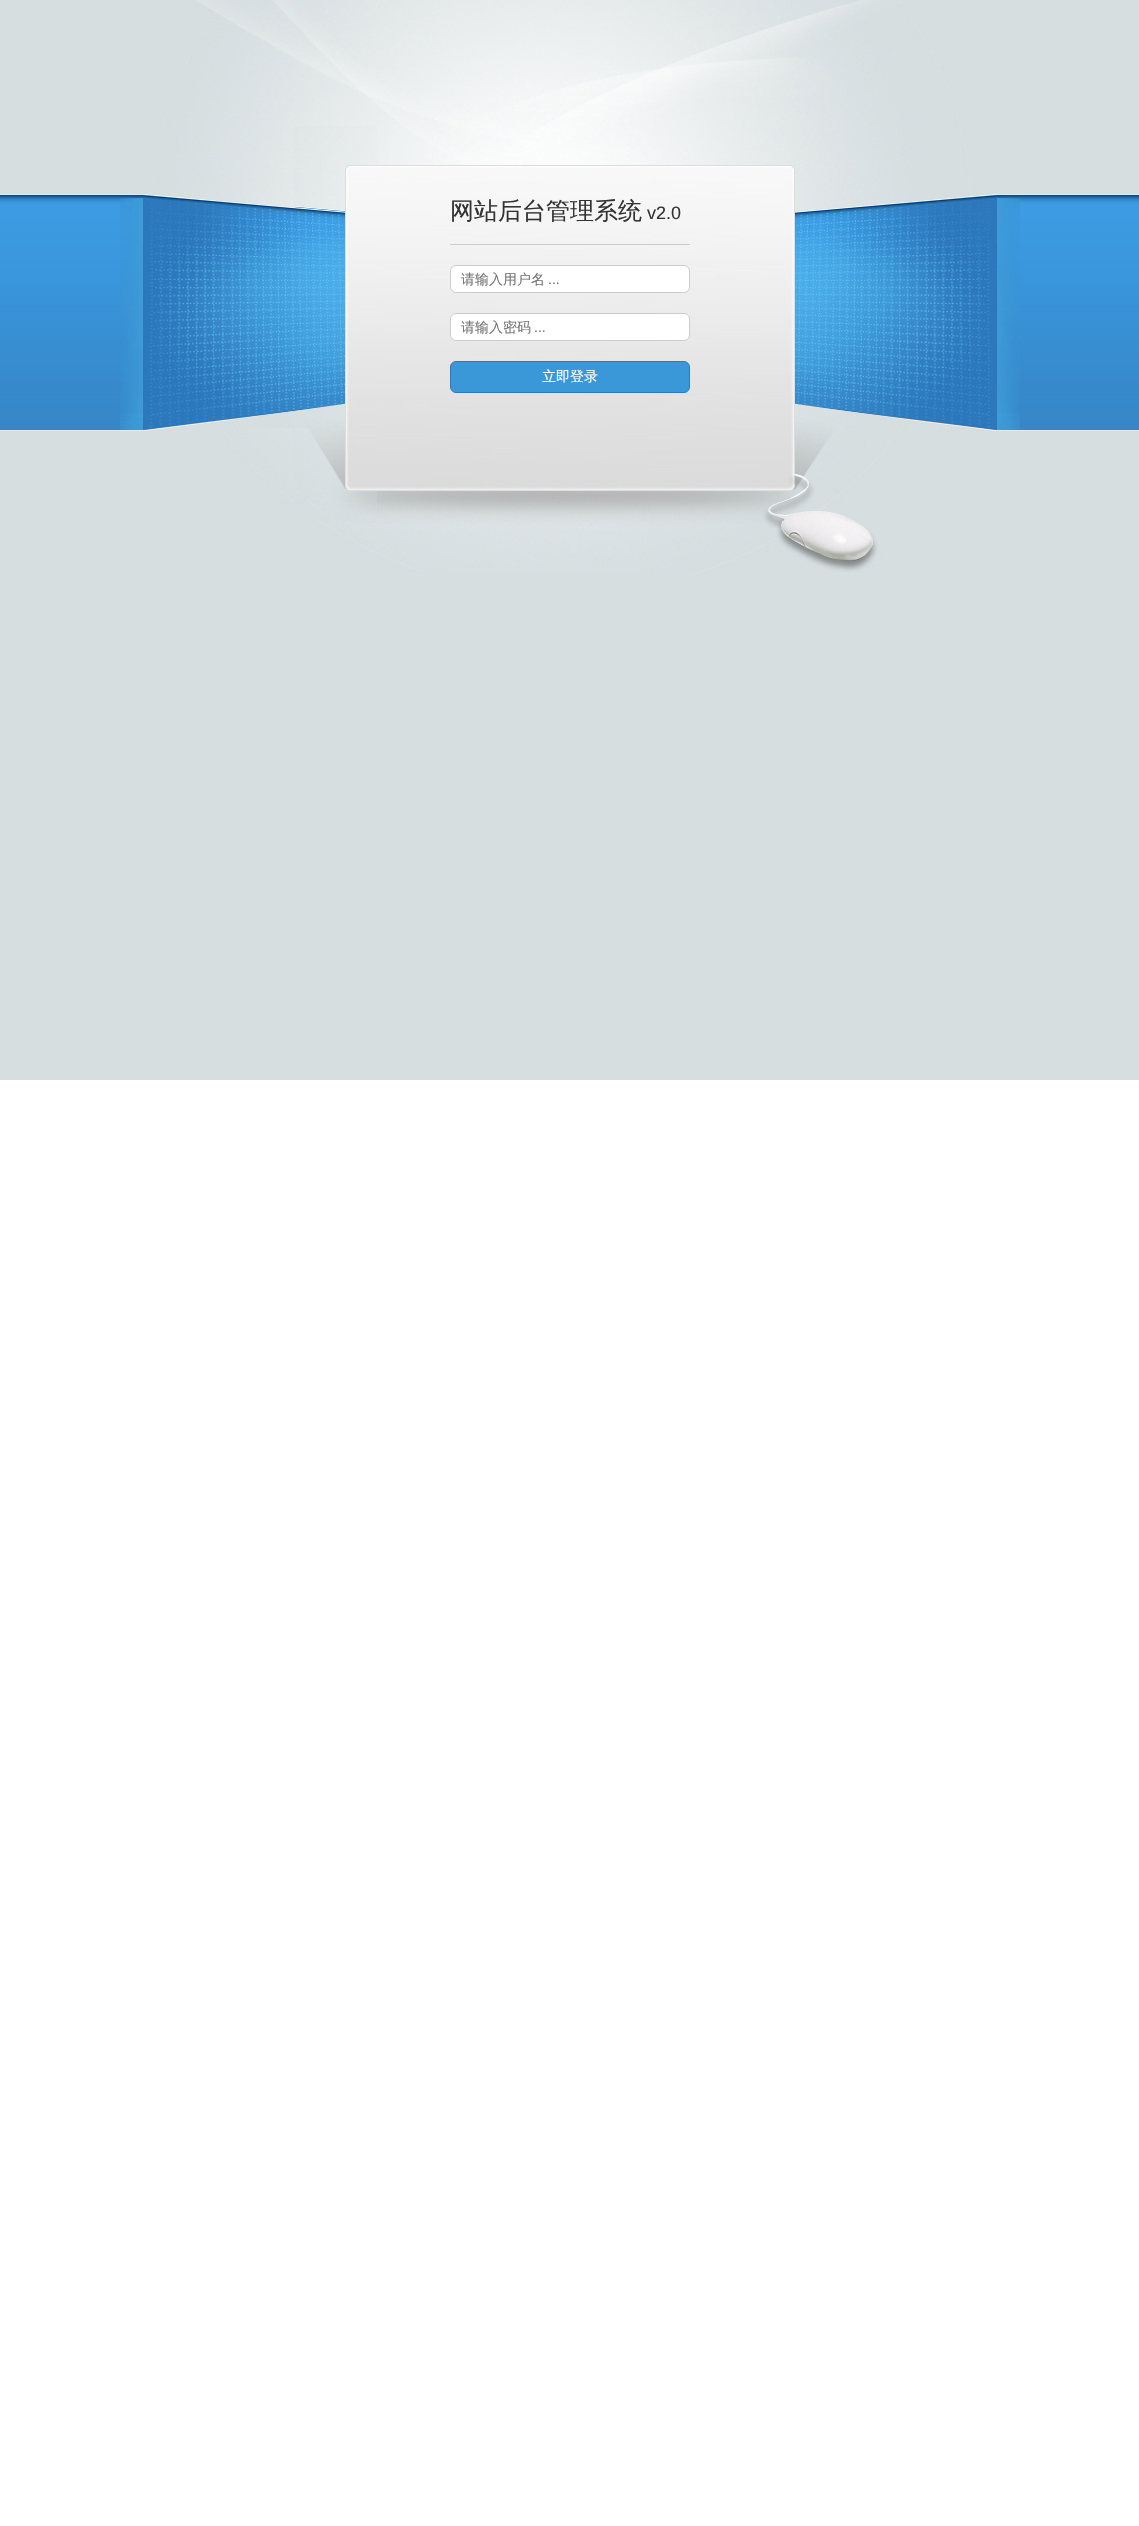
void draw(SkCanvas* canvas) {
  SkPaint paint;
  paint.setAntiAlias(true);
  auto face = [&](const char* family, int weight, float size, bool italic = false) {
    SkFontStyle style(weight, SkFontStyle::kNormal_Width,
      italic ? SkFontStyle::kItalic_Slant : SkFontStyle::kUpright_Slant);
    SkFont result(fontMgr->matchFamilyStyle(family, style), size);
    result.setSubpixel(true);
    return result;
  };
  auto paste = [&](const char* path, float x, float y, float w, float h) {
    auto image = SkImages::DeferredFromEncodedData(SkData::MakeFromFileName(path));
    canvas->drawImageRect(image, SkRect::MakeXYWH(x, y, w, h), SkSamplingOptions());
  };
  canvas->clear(0xffffffff);
  paste("img/1.png", 0, 0, 1139, 1080);
  paste("img/2.png", 120, 0, 900, 572);
  paint.setColor(0xffcccccc);
  canvas->drawRect(SkRect::MakeXYWH(450, 244, 240, 1), paint);
  paint.setColor(0xffffffff);
  canvas->drawRoundRect(SkRect::MakeXYWH(450.5f, 265.5f, 239, 27), 5.5f, 5.5f, paint);
  paint.setStroke(true);
  paint.setStrokeWidth(1);
  paint.setColor(0xffcccccc);
  canvas->drawRoundRect(SkRect::MakeXYWH(450.5f, 265.5f, 239, 27), 5.5f, 5.5f, paint);
  paint.setStroke(false);
  paint.setColor(0xffffffff);
  canvas->drawRoundRect(SkRect::MakeXYWH(450.5f, 313.5f, 239, 27), 5.5f, 5.5f, paint);
  paint.setStroke(true);
  paint.setColor(0xffcccccc);
  canvas->drawRoundRect(SkRect::MakeXYWH(450.5f, 313.5f, 239, 27), 5.5f, 5.5f, paint);
  paint.setStroke(false);
  paint.setColor(0xff3a98d8);
  canvas->drawRoundRect(SkRect::MakeXYWH(450.5f, 361.5f, 239, 31), 5.5f, 5.5f, paint);
  paint.setStroke(true);
  paint.setColor(0xff2e79bd);
  canvas->drawRoundRect(SkRect::MakeXYWH(450.5f, 361.5f, 239, 31), 5.5f, 5.5f, paint);
  auto f0 = face("WenQuanYi Zen Hei", 500, 24);
  paint.setStroke(false);
  paint.setColor(0xff333333);
  canvas->drawString("网站后台管理系统", 450, 219, f0, paint);
  auto f1 = face("Liberation Sans", 400, 18);
  canvas->drawString("v2.0", 647, 219, f1, paint);
  auto f2 = face("WenQuanYi Zen Hei", 500, 14);
  paint.setColor(0xff757575);
  canvas->drawString("请输入用户名", 461, 284, f2, paint);
  auto f3 = face("Liberation Sans", 400, 14);
  canvas->drawString("...", 548, 284, f3, paint);
  canvas->drawString("请输入密码", 461, 332, f2, paint);
  canvas->drawString("...", 534, 332, f3, paint);
  paint.setColor(0xffffffff);
  canvas->drawString("立即登录", 542, 381, f2, paint);
}
